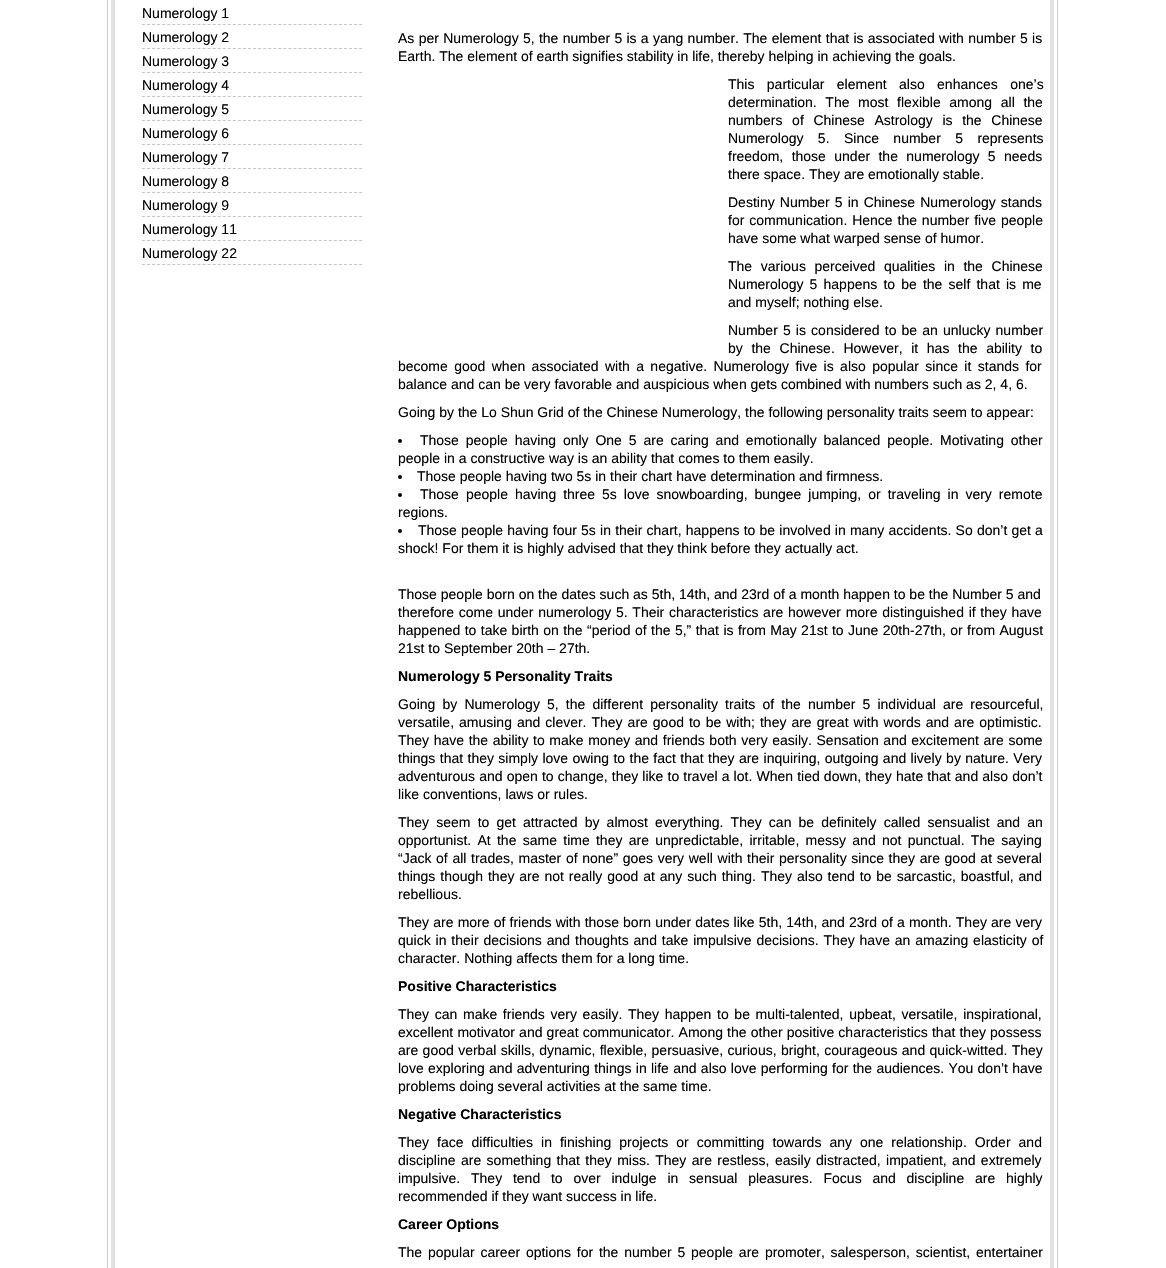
void draw(SkCanvas* canvas) {
  SkPaint paint;
  paint.setAntiAlias(true);
  auto face = [&](const char* family, int weight, float size, bool italic = false) {
    SkFontStyle style(weight, SkFontStyle::kNormal_Width,
      italic ? SkFontStyle::kItalic_Slant : SkFontStyle::kUpright_Slant);
    SkFont result(fontMgr->matchFamilyStyle(family, style), size);
    result.setSubpixel(true);
    return result;
  };
  auto writeSpaced = [&](const char* s, float x, float y, const SkFont& font, const SkPaint& ink, float letter, float word) {
    std::vector<SkGlyphID> glyphs(font.countText(s, strlen(s), SkTextEncoding::kUTF8));
    std::vector<float> xs(glyphs.size());
    font.textToGlyphs(s, strlen(s), SkTextEncoding::kUTF8, glyphs);
    font.getXPos(glyphs, xs, x);
    float extra = 0;
    for (size_t i = 0; i < glyphs.size(); i++) {
      xs[i] += extra;
      extra += letter + word * (glyphs[i] == font.unicharToGlyph(' '));
    }
    canvas->drawTextBlob(SkTextBlob::MakeFromPosHGlyphs(glyphs, xs, y, font), 0, 0, ink);
  };
  auto shape = [&](const char* data, bool evenOdd = false) {
    SkPath result = *SkParsePath::FromSVGString(data);
    if (evenOdd) result.setFillType(SkPathFillType::kEvenOdd);
    return result;
  };
  canvas->clear(0xffffffff);
  {
    const struct { float x, y, w, h; SkColor color; } items[] = {
      {1057, 0, 1, 1268, 0xffcdcdcd},
      {107, 0, 1, 1268, 0xffcdcdcd},
      {1050, 0, 4, 1268, 0xffe1e1e1},
      {111, 0, 4, 1268, 0xffe1e1e1},
    };
    for (auto [x, y, w, h, color] : items) {
      paint.setColor(color);
      canvas->drawRect(SkRect::MakeXYWH(x, y, w, h), paint);
    }
  }
  paint.setStroke(true);
  paint.setStrokeWidth(1);
  paint.setColor(0xffc5c5c5);
  paint.setPathEffect(SkDashPathEffect::Make({{3, 2.05f}}, 0));
  canvas->drawPath(shape("M142 24.5H362"), paint);
  paint.setPathEffect(nullptr);
  paint.setPathEffect(SkDashPathEffect::Make({{3, 2.05f}}, 0));
  canvas->drawPath(shape("M142 48.5H362"), paint);
  paint.setPathEffect(nullptr);
  paint.setPathEffect(SkDashPathEffect::Make({{3, 2.05f}}, 0));
  canvas->drawPath(shape("M142 72.5H362"), paint);
  paint.setPathEffect(nullptr);
  paint.setPathEffect(SkDashPathEffect::Make({{3, 2.05f}}, 0));
  canvas->drawPath(shape("M142 96.5H362"), paint);
  paint.setPathEffect(nullptr);
  paint.setPathEffect(SkDashPathEffect::Make({{3, 2.05f}}, 0));
  canvas->drawPath(shape("M142 120.5H362"), paint);
  paint.setPathEffect(nullptr);
  paint.setPathEffect(SkDashPathEffect::Make({{3, 2.05f}}, 0));
  canvas->drawPath(shape("M142 144.5H362"), paint);
  paint.setPathEffect(nullptr);
  paint.setPathEffect(SkDashPathEffect::Make({{3, 2.05f}}, 0));
  canvas->drawPath(shape("M142 168.5H362"), paint);
  paint.setPathEffect(nullptr);
  paint.setPathEffect(SkDashPathEffect::Make({{3, 2.05f}}, 0));
  canvas->drawPath(shape("M142 192.5H362"), paint);
  paint.setPathEffect(nullptr);
  paint.setPathEffect(SkDashPathEffect::Make({{3, 2.05f}}, 0));
  canvas->drawPath(shape("M142 216.5H362"), paint);
  paint.setPathEffect(nullptr);
  paint.setPathEffect(SkDashPathEffect::Make({{3, 2.05f}}, 0));
  canvas->drawPath(shape("M142 240.5H362"), paint);
  paint.setPathEffect(nullptr);
  paint.setPathEffect(SkDashPathEffect::Make({{3, 2.05f}}, 0));
  canvas->drawPath(shape("M142 264.5H362"), paint);
  paint.setPathEffect(nullptr);
  paint.setStroke(false);
  paint.setColor(0xff000000);
  canvas->drawCircle(400, 441, 2, paint);
  canvas->drawCircle(400, 477, 2, paint);
  canvas->drawCircle(400, 495, 2, paint);
  canvas->drawCircle(400, 531, 2, paint);
  auto f0 = face("Liberation Sans", 400, 14);
  {
    const struct { const char* s; float x, y; } items[] = {
      {"Numerology 1", 142, 18},
      {"Numerology 2", 142, 42},
      {"Numerology 3", 142, 66},
      {"Numerology 4", 142, 90},
      {"Numerology 5", 142, 114},
      {"Numerology 6", 142, 138},
      {"Numerology 7", 142, 162},
      {"Numerology 8", 142, 186},
      {"Numerology 9", 142, 210},
      {"Numerology 11", 142, 234},
      {"Numerology 22", 142, 258},
    };
    for (auto [s, x, y] : items) {
      canvas->drawString(s, x, y, f0, paint);
    }
  }
  writeSpaced("As per Numerology 5, the number 5 is a yang number. The element that is associated with number 5 is", 398, 43, f0, paint, 0, 0.4f);
  canvas->drawString("Earth. The element of earth signifies stability in life, thereby helping in achieving the goals.", 398, 61, f0, paint);
  writeSpaced("This particular element also enhances one’s", 728, 89, f0, paint, 0, 8.5f);
  writeSpaced("determination. The most flexible among all the", 728, 107, f0, paint, 0, 4.75f);
  writeSpaced("numbers of Chinese Astrology is the Chinese", 728, 125, f0, paint, 0, 5.75f);
  writeSpaced("Numerology 5. Since number 5 represents", 728, 143, f0, paint, 0, 10.5f);
  writeSpaced("freedom, those under the numerology 5 needs", 728, 161, f0, paint, 0, 4.5f);
  canvas->drawString("there space. They are emotionally stable.", 728, 179, f0, paint);
  writeSpaced("Destiny Number 5 in Chinese Numerology stands", 728, 207, f0, paint, 0, 1.25f);
  writeSpaced("for communication. Hence the number five people", 728, 225, f0, paint, 0, 1);
  canvas->drawString("have some what warped sense of humor.", 728, 243, f0, paint);
  writeSpaced("The various perceived qualities in the Chinese", 728, 271, f0, paint, 0, 4.75f);
  writeSpaced("Numerology 5 happens to be the self that is me", 728, 289, f0, paint, 0, 2.25f);
  canvas->drawString("and myself; nothing else.", 728, 307, f0, paint);
  writeSpaced("Number 5 is considered to be an unlucky number", 728, 335, f0, paint, 0, 1.25f);
  writeSpaced("by the Chinese. However, it has the ability to", 728, 353, f0, paint, 0, 4.75f);
  writeSpaced("become good when associated with a negative. Numerology five is also popular since it stands for", 398, 371, f0, paint, 0, 2.5f);
  canvas->drawString("balance and can be very favorable and auspicious when gets combined with numbers such as 2, 4, 6.", 398, 389, f0, paint);
  canvas->drawString("Going by the Lo Shun Grid of the Chinese Numerology, the following personality traits seem to appear:", 398, 417, f0, paint);
  writeSpaced("Those people having only One 5 are caring and emotionally balanced people. Motivating other", 420, 445, f0, paint, 0, 3);
  canvas->drawString("people in a constructive way is an ability that comes to them easily.", 398, 463, f0, paint);
  canvas->drawString("Those people having two 5s in their chart have determination and firmness.", 417, 481, f0, paint);
  writeSpaced("Those people having three 5s love snowboarding, bungee jumping, or traveling in very remote", 420, 499, f0, paint, 0, 3.1f);
  canvas->drawString("regions.", 398, 517, f0, paint);
  writeSpaced("Those people having four 5s in their chart, happens to be involved in many accidents. So don’t get a", 418, 535, f0, paint, 0, 0.3f);
  canvas->drawString("shock! For them it is highly advised that they think before they actually act.", 398, 553, f0, paint);
  canvas->drawString("Those people born on the dates such as 5th, 14th, and 23rd of a month happen to be the Number 5 and", 398, 599, f0, paint);
  writeSpaced("therefore come under numerology 5. Their characteristics are however more distinguished if they have", 398, 617, f0, paint, 0, 0.8f);
  writeSpaced("happened to take birth on the “period of the 5,” that is from May 21st to June 20th-27th, or from August", 398, 635, f0, paint, 0, 0.5f);
  canvas->drawString("21st to September 20th – 27th.", 398, 653, f0, paint);
  auto f1 = face("Liberation Sans", 700, 14);
  canvas->drawString("Numerology 5 Personality Traits", 398, 681, f1, paint);
  writeSpaced("Going by Numerology 5, the different personality traits of the number 5 individual are resourceful,", 398, 709, f0, paint, 0, 3.25f);
  writeSpaced("versatile, amusing and clever. They are good to be with; they are great with words and are optimistic.", 398, 727, f0, paint, 0, 1.1f);
  writeSpaced("They have the ability to make money and friends both very easily. Sensation and excitement are some", 398, 745, f0, paint, 0, 0.7f);
  writeSpaced("things that they simply love owing to the fact that they are inquiring, outgoing and lively by nature. Very", 398, 763, f0, paint, 0, 0.5f);
  writeSpaced("adventurous and open to change, they like to travel a lot. When tied down, they hate that and also don’t", 398, 781, f0, paint, 0, 0.25f);
  canvas->drawString("like conventions, laws or rules.", 398, 799, f0, paint);
  writeSpaced("They seem to get attracted by almost everything. They can be definitely called sensualist and an", 398, 827, f0, paint, 0, 3.25f);
  writeSpaced("opportunist. At the same time they are unpredictable, irritable, messy and not punctual. The saying", 398, 845, f0, paint, 0, 2.4f);
  writeSpaced("“Jack of all trades, master of none” goes very well with their personality since they are good at several", 398, 863, f0, paint, 0, 0.75f);
  writeSpaced("things though they are not really good at any such thing.", 398, 881, f0, paint, 0, 1);
  writeSpaced("They also tend to be sarcastic, boastful, and", 761, 881, f0, paint, 0, 1);
  canvas->drawString("rebellious.", 398, 899, f0, paint);
  writeSpaced("They are more of friends with those born under dates like 5th, 14th, and 23rd of a month. They are very", 398, 927, f0, paint, 0, 0.25f);
  writeSpaced("quick in their decisions and thoughts and take impulsive decisions. They have an amazing elasticity of", 398, 945, f0, paint, 0, 1);
  canvas->drawString("character. Nothing affects them for a long time.", 398, 963, f0, paint);
  canvas->drawString("Positive Characteristics", 398, 991, f1, paint);
  writeSpaced("They can make friends very easily. They happen to be multi-talented, upbeat, versatile, inspirational,", 398, 1019, f0, paint, 0, 1.75f);
  writeSpaced("excellent motivator and great communicator. Among the other positive characteristics that they possess", 398, 1037, f0, paint, 0, 0.25f);
  writeSpaced("are good verbal skills, dynamic, flexible, persuasive, curious, bright, courageous and quick-witted. They", 398, 1055, f0, paint, 0, 0.5f);
  writeSpaced("love exploring and adventuring things in life and also love performing for the audiences. You don’t have", 398, 1073, f0, paint, 0, 0.4f);
  canvas->drawString("problems doing several activities at the same time.", 398, 1091, f0, paint);
  canvas->drawString("Negative Characteristics", 398, 1119, f1, paint);
  writeSpaced("They face difficulties in finishing projects or committing towards any one relationship. Order and", 398, 1147, f0, paint, 0, 4.1f);
  writeSpaced("discipline are something that they miss. They are restless, easily distracted, impatient, and extremely", 398, 1165, f0, paint, 0, 1.5f);
  writeSpaced("impulsive. They tend to over indulge in sensual pleasures. Focus and discipline are highly", 398, 1183, f0, paint, 0, 6.9f);
  canvas->drawString("recommended if they want success in life.", 398, 1201, f0, paint);
  canvas->drawString("Career Options", 398, 1229, f1, paint);
  writeSpaced("The popular career options for the number 5 people are promoter, salesperson, scientist, entertainer", 398, 1257, f0, paint, 0, 1.9f);
}
